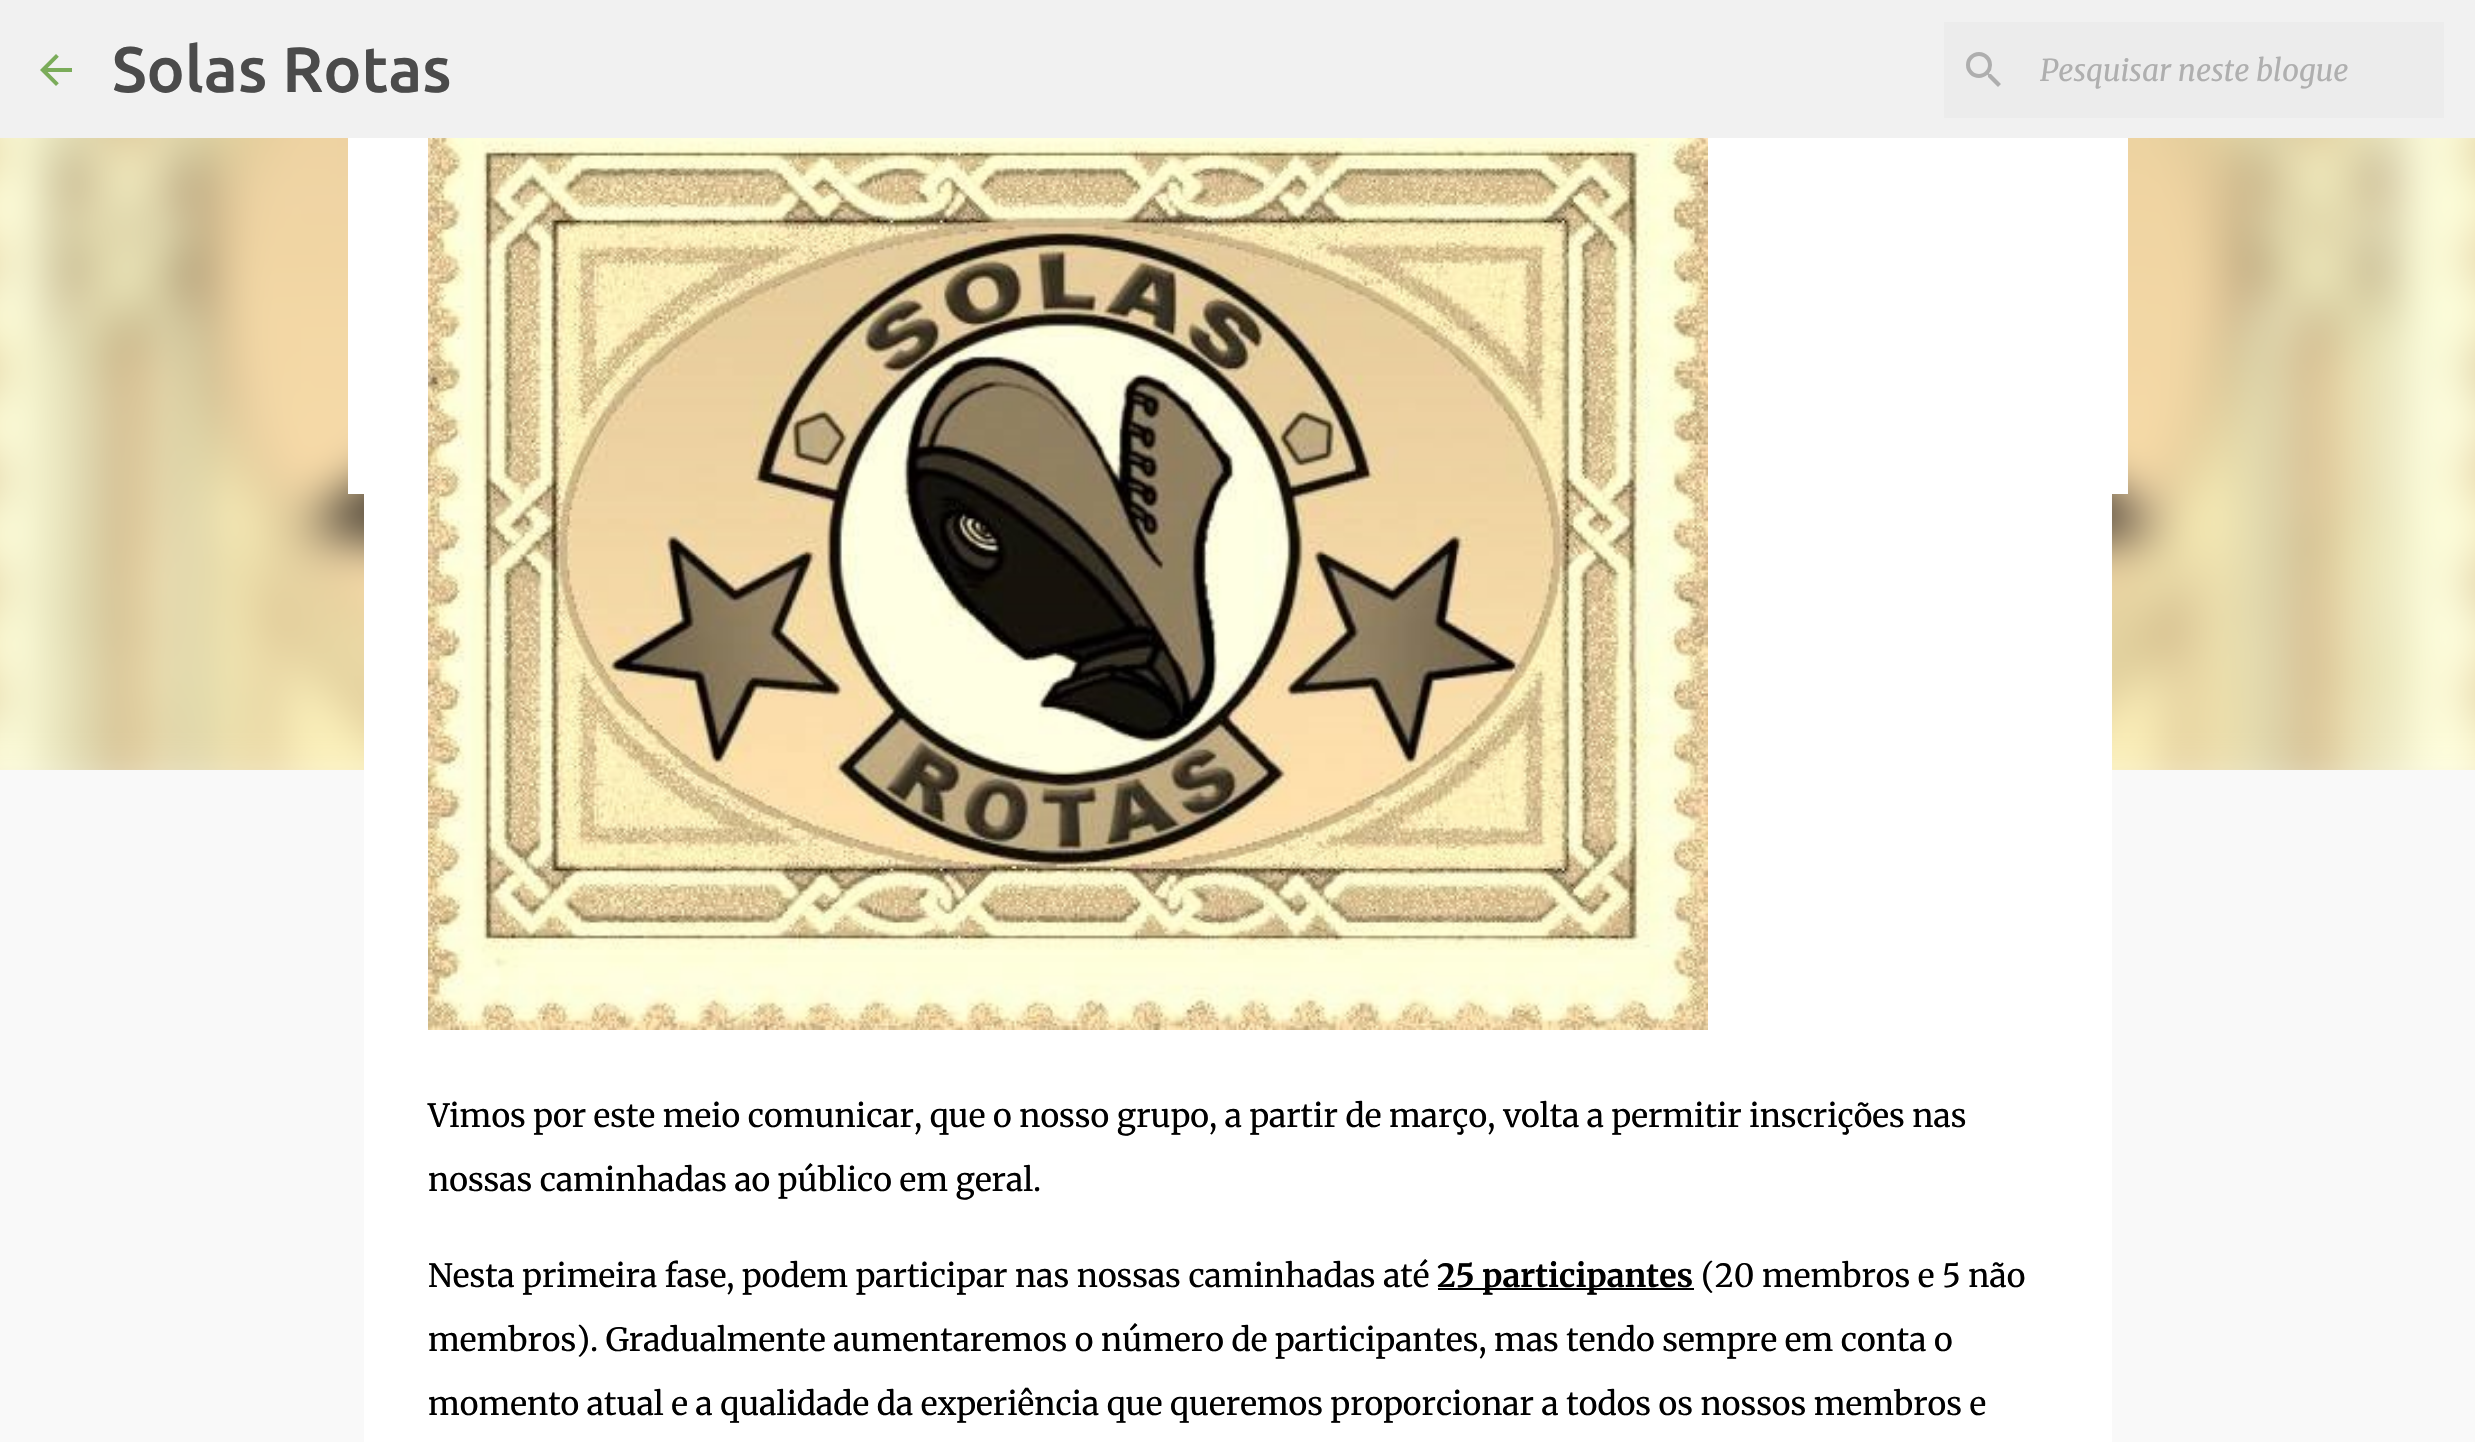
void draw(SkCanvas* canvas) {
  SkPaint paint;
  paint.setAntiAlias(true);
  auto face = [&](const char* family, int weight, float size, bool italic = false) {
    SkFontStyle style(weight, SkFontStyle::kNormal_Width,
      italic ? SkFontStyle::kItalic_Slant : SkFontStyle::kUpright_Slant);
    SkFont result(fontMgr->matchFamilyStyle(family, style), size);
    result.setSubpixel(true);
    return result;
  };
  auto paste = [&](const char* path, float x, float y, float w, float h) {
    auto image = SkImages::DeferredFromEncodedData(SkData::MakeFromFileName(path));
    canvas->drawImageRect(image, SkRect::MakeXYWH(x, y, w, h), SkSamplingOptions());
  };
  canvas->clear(0xfff9f9f9);
  paint.setColor(0xfff1f1f1);
  canvas->drawRect(SkRect::MakeXYWH(0, 0, 2475, 138), paint);
  paste("img/1.png", 40, 54, 32, 32);
  paint.setColor(0xffececec);
  canvas->drawRect(SkRect::MakeXYWH(1944, 22, 500, 96), paint);
  paste("img/2.png", 1966, 52, 35, 35);
  paste("img/4.png", 0, 138, 2475, 632);
  paint.setColor(0xffffffff);
  canvas->drawRect(SkRect::MakeXYWH(348, 138, 1780, 356), paint);
  canvas->drawRect(SkRect::MakeXYWH(364, 494, 1748, 948), paint);
  paste("img/3.png", 428, 138, 1280, 892);
  paint.setColor(0xff000000);
  canvas->drawRect(SkRect::MakeXYWH(1438, 1288, 256, 2), paint);
  auto f0 = face("Ubuntu", 500, 64);
  paint.setColor(0xff4b4b4b);
  canvas->drawString("Solas Rotas", 112, 92, f0, paint);
  auto f1 = face("Merriweather", 400, 30, true);
  paint.setColor(0xffafafaf);
  canvas->drawString("Pesquisar neste blogue", 2040, 81, f1, paint);
  auto f2 = face("Merriweather", 400, 32);
  paint.setColor(0xff000000);
  {
    const struct { const char* s; float x, y; } items[] = {
      {"Vimos por este meio comunicar, que o nosso grupo, a partir de março, volta a permitir inscrições nas", 428, 1127},
      {"nossas caminhadas ao público em geral.", 428, 1191},
      {"Nesta primeira fase, podem participar nas nossas caminhadas até", 428, 1287},
    };
    for (auto [s, x, y] : items) {
      canvas->drawString(s, x, y, f2, paint);
    }
  }
  auto f3 = face("Merriweather", 700, 32);
  canvas->drawString("25 participantes", 1437, 1287, f3, paint);
  {
    const struct { const char* s; float x, y; } items[] = {
      {"(20 membros e 5 não", 1701, 1287},
      {"membros). Gradualmente aumentaremos o número de participantes, mas tendo sempre em conta o", 428, 1351},
      {"momento atual e a qualidade da experiência que queremos proporcionar a todos os nossos membros e", 428, 1415},
    };
    for (auto [s, x, y] : items) {
      canvas->drawString(s, x, y, f2, paint);
    }
  }
}
